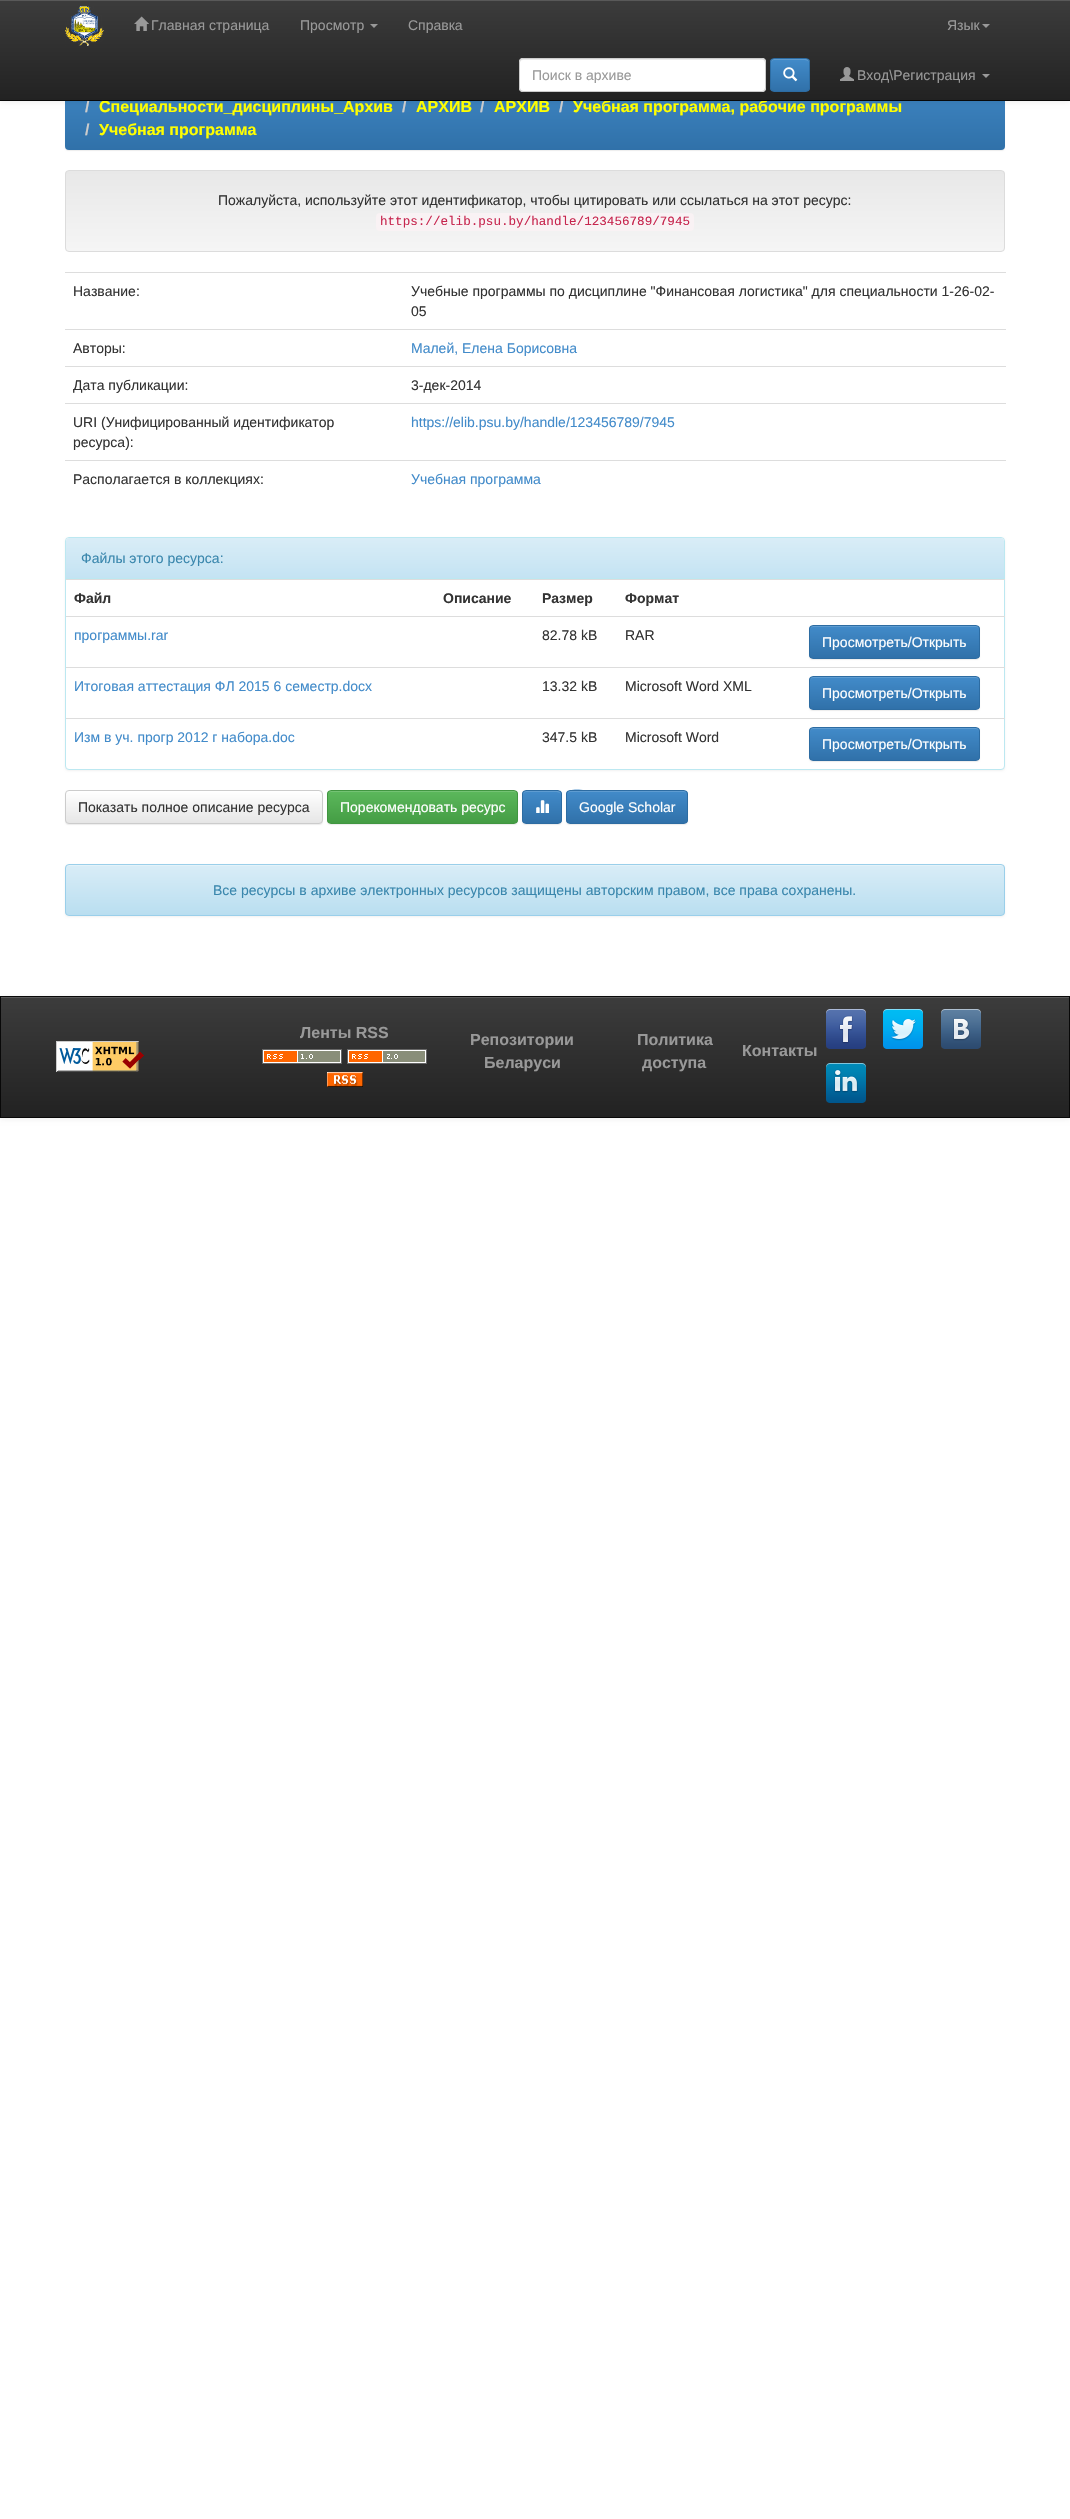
void draw(SkCanvas* canvas) {
  SkPaint paint;
  paint.setAntiAlias(true);
  auto face = [&](const char* family, int weight, float size, bool italic = false) {
    SkFontStyle style(weight, SkFontStyle::kNormal_Width,
      italic ? SkFontStyle::kItalic_Slant : SkFontStyle::kUpright_Slant);
    SkFont result(fontMgr->matchFamilyStyle(family, style), size);
    result.setSubpixel(true);
    return result;
  };
  auto paste = [&](const char* path, float x, float y, float w, float h) {
    auto image = SkImages::DeferredFromEncodedData(SkData::MakeFromFileName(path));
    canvas->drawImageRect(image, SkRect::MakeXYWH(x, y, w, h), SkSamplingOptions());
  };
  auto shape = [&](const char* data, bool evenOdd = false) {
    SkPath result = *SkParsePath::FromSVGString(data);
    if (evenOdd) result.setFillType(SkPathFillType::kEvenOdd);
    return result;
  };
  canvas->clear(0xffffffff);
  paint.setColor(0x12000000);
  paint.setMaskFilter(SkMaskFilter::MakeBlur(kNormal_SkBlurStyle, 0.5f));
  canvas->drawRoundRect(SkRect::MakeXYWH(65, 66, 940, 85), 4, 4, paint);
  paint.setMaskFilter(nullptr);
  {
    const SkColor colors[] = {0xff428bca, 0xff3071a9};
    const float stops[] = {0, 1};
    const SkPoint ends[] = {{535, 65}, {535, 150}};
    paint.setShader(SkGradientShader::MakeLinear(ends, colors, stops, 2, SkTileMode::kClamp));
    paint.setAlpha(255);
  }
  canvas->drawRoundRect(SkRect::MakeXYWH(65, 65, 940, 85), 4, 4, paint);
  paint.setShader(nullptr);
  paint.setColor(0x12000000);
  paint.setMaskFilter(SkMaskFilter::MakeBlur(kNormal_SkBlurStyle, 2.5f));
  canvas->drawRect(SkRect::MakeXYWH(0, 1, 1070, 101), paint);
  paint.setMaskFilter(nullptr);
  {
    const SkColor colors[] = {0xff3c3c3c, 0xff222222};
    const float stops[] = {0, 1};
    const SkPoint ends[] = {{535, 0}, {535, 100}};
    paint.setShader(SkGradientShader::MakeLinear(ends, colors, stops, 2, SkTileMode::kClamp));
    paint.setAlpha(255);
  }
  canvas->drawRect(SkRect::MakeXYWH(0, 1, 1070, 99), paint);
  paint.setShader(nullptr);
  paint.setColor(0xff595959);
  canvas->drawRect(SkRect::MakeXYWH(0, 0, 1070, 1), paint);
  paste("img/1.png", 65, 6, 39, 40);
  paste("img/2.png", 134, 16, 15, 15);
  paint.setColor(0xff999999);
  canvas->drawPath(shape("M370 24H378L374 28Z"), paint);
  canvas->drawPath(shape("M982 24H990L986 28Z"), paint);
  paint.setColor(0xffffffff);
  canvas->drawRoundRect(SkRect::MakeXYWH(519, 58, 247, 34), 4, 4, paint);
  paint.setColor(0xffececec);
  canvas->drawPath(shape("M523 60H763L765 61V63C765 61 764 59 762 59H523C521 59 520 61 520 63C520 61 521 60 523 60Z"), paint);
  paint.setStroke(true);
  paint.setStrokeWidth(1);
  paint.setColor(0xffcccccc);
  canvas->drawRoundRect(SkRect::MakeXYWH(519.5f, 58.5f, 246, 33), 3.5f, 3.5f, paint);
  canvas->save();
  canvas->clipPath(shape("M774 58H806C808 58 810 60 810 62V88C810 90 808 92 806 92H774C772 92 770 90 770 88V62C770 60 772 58 774 58Z"), true);
  paint.setStroke(false);
  {
    const SkColor colors[] = {0xff428bca, 0xff3071a9};
    const float stops[] = {0, 1};
    const SkPoint ends[] = {{790, 59}, {790, 91}};
    paint.setShader(SkGradientShader::MakeLinear(ends, colors, stops, 2, SkTileMode::kClamp));
    paint.setAlpha(255);
  }
  canvas->drawRect(SkRect::MakeXYWH(770, 59, 40, 32), paint);
  canvas->restore();
  paint.setShader(nullptr);
  paint.setColor(0xff5e9cd1);
  canvas->drawPath(shape("M774 60H801C806.5 60 808.5 60.5 809 62.5C809 57.5 804.5 59 800.5 59H779.5C776 59 771 58 771 62.5C771.5 61 772.5 60 774 60Z"), paint);
  paint.setStroke(true);
  paint.setColor(0xff2d6ca2);
  canvas->drawRoundRect(SkRect::MakeXYWH(770.5f, 58.5f, 39, 33), 3.5f, 3.5f, paint);
  paste("img/3.png", 783, 67, 15, 15);
  paste("img/4.png", 840, 67, 14, 14);
  paint.setStroke(false);
  paint.setColor(0xff999999);
  canvas->drawPath(shape("M982 74H990L986 78Z"), paint);
  canvas->save();
  canvas->clipPath(shape("M69 170H1001C1003 170 1005 172 1005 174V248C1005 250 1003 252 1001 252H69C67 252 65 250 65 248V174C65 172 67 170 69 170Z"), true);
  {
    const SkColor colors[] = {0xffe8e8e8, 0xfff5f5f5};
    const float stops[] = {0, 1};
    const SkPoint ends[] = {{535, 171}, {535, 251}};
    paint.setShader(SkGradientShader::MakeLinear(ends, colors, stops, 2, SkTileMode::kClamp));
    paint.setAlpha(255);
  }
  canvas->drawRect(SkRect::MakeXYWH(65, 171, 940, 80), paint);
  canvas->restore();
  paint.setStroke(true);
  paint.setShader(nullptr);
  paint.setColor(0xffdcdcdc);
  canvas->drawRoundRect(SkRect::MakeXYWH(65.5f, 170.5f, 939, 81), 3.5f, 3.5f, paint);
  paint.setStroke(false);
  paint.setColor(0xfff9f2f4);
  canvas->drawRoundRect(SkRect::MakeXYWH(376, 213, 318, 18), 4, 4, paint);
  {
    const struct { float x, y, w, h; SkColor color; } items[] = {
      {65, 272, 941, 1, 0xffdddddd},
      {65, 329, 941, 1, 0xffdddddd},
      {65, 366, 941, 1, 0xffdddddd},
      {65, 403, 941, 1, 0xffdddddd},
      {65, 460, 941, 1, 0xffdddddd},
    };
    for (auto [x, y, w, h, color] : items) {
      paint.setColor(color);
      canvas->drawRect(SkRect::MakeXYWH(x, y, w, h), paint);
    }
  }
  paint.setColor(0x0d000000);
  paint.setMaskFilter(SkMaskFilter::MakeBlur(kNormal_SkBlurStyle, 1));
  canvas->drawRoundRect(SkRect::MakeXYWH(65, 538, 940, 233), 4, 4, paint);
  paint.setMaskFilter(nullptr);
  paint.setColor(0xffffffff);
  canvas->drawRoundRect(SkRect::MakeXYWH(65.5f, 537.5f, 939, 232), 3.5f, 3.5f, paint);
  paint.setStroke(true);
  paint.setColor(0xffbce8f1);
  canvas->drawRoundRect(SkRect::MakeXYWH(65.5f, 537.5f, 939, 232), 3.5f, 3.5f, paint);
  paint.setStroke(false);
  {
    const SkColor colors[] = {0xffd9edf7, 0xffc4e3f3};
    const float stops[] = {0, 1};
    const SkPoint ends[] = {{535, 538}, {535, 578}};
    paint.setShader(SkGradientShader::MakeLinear(ends, colors, stops, 2, SkTileMode::kClamp));
    paint.setAlpha(255);
  }
  canvas->drawPath(shape("M69 538H1001C1002.5 538 1004 539.5 1004 541V578H66V541C66 539.5 67.5 538 69 538Z"), paint);
  paint.setShader(nullptr);
  {
    const struct { float x, y, w, h; SkColor color; } items[] = {
      {66, 578, 938, 1, 0xffbce8f1},
      {66, 579, 939, 1, 0xffdddddd},
      {66, 616, 939, 1, 0xffdddddd},
    };
    for (auto [x, y, w, h, color] : items) {
      paint.setColor(color);
      canvas->drawRect(SkRect::MakeXYWH(x, y, w, h), paint);
    }
  }
  paint.setColor(0x12000000);
  paint.setMaskFilter(SkMaskFilter::MakeBlur(kNormal_SkBlurStyle, 0.5f));
  canvas->drawRoundRect(SkRect::MakeXYWH(809, 626, 171, 34), 4, 4, paint);
  paint.setMaskFilter(nullptr);
  canvas->save();
  canvas->clipPath(shape("M813 625H976C978 625 980 627 980 629V655C980 657 978 659 976 659H813C811 659 809 657 809 655V629C809 627 811 625 813 625Z"), true);
  {
    const SkColor colors[] = {0xff428bca, 0xff3071a9};
    const float stops[] = {0, 1};
    const SkPoint ends[] = {{895, 626}, {895, 658}};
    paint.setShader(SkGradientShader::MakeLinear(ends, colors, stops, 2, SkTileMode::kClamp));
    paint.setAlpha(255);
  }
  canvas->drawRect(SkRect::MakeXYWH(809, 626, 171, 32), paint);
  canvas->restore();
  paint.setShader(nullptr);
  paint.setColor(0xff5e9cd1);
  canvas->drawPath(shape("M813 627H976C978 627 979 628 979 630V629C979 627 978 626 976 626H813C811 626 810 627 810 629V630C810 628 811 627 813 627Z"), paint);
  paint.setStroke(true);
  paint.setColor(0xff2d6ca2);
  canvas->drawRoundRect(SkRect::MakeXYWH(809.5f, 625.5f, 170, 33), 3.5f, 3.5f, paint);
  paint.setStroke(false);
  paint.setColor(0xffdddddd);
  canvas->drawRect(SkRect::MakeXYWH(66, 667, 939, 1), paint);
  paint.setColor(0x12000000);
  paint.setMaskFilter(SkMaskFilter::MakeBlur(kNormal_SkBlurStyle, 0.5f));
  canvas->drawRoundRect(SkRect::MakeXYWH(809, 677, 171, 34), 4, 4, paint);
  paint.setMaskFilter(nullptr);
  canvas->save();
  canvas->clipPath(shape("M813 676H976C978 676 980 678 980 680V706C980 708 978 710 976 710H813C811 710 809 708 809 706V680C809 678 811 676 813 676Z"), true);
  {
    const SkColor colors[] = {0xff428bca, 0xff3071a9};
    const float stops[] = {0, 1};
    const SkPoint ends[] = {{895, 677}, {895, 709}};
    paint.setShader(SkGradientShader::MakeLinear(ends, colors, stops, 2, SkTileMode::kClamp));
    paint.setAlpha(255);
  }
  canvas->drawRect(SkRect::MakeXYWH(809, 677, 171, 32), paint);
  canvas->restore();
  paint.setShader(nullptr);
  paint.setColor(0xff5e9cd1);
  canvas->drawPath(shape("M813 678H976C978 678 979 679 979 681V680C979 678 978 677 976 677H813C811 677 810 678 810 680V681C810 679 811 678 813 678Z"), paint);
  paint.setStroke(true);
  paint.setColor(0xff2d6ca2);
  canvas->drawRoundRect(SkRect::MakeXYWH(809.5f, 676.5f, 170, 33), 3.5f, 3.5f, paint);
  paint.setStroke(false);
  paint.setColor(0xffdddddd);
  canvas->drawRect(SkRect::MakeXYWH(66, 718, 939, 1), paint);
  paint.setColor(0x12000000);
  paint.setMaskFilter(SkMaskFilter::MakeBlur(kNormal_SkBlurStyle, 0.5f));
  canvas->drawRoundRect(SkRect::MakeXYWH(809, 728, 171, 34), 4, 4, paint);
  paint.setMaskFilter(nullptr);
  canvas->save();
  canvas->clipPath(shape("M813 727H976C978 727 980 729 980 731V757C980 759 978 761 976 761H813C811 761 809 759 809 757V731C809 729 811 727 813 727Z"), true);
  {
    const SkColor colors[] = {0xff428bca, 0xff3071a9};
    const float stops[] = {0, 1};
    const SkPoint ends[] = {{895, 728}, {895, 760}};
    paint.setShader(SkGradientShader::MakeLinear(ends, colors, stops, 2, SkTileMode::kClamp));
    paint.setAlpha(255);
  }
  canvas->drawRect(SkRect::MakeXYWH(809, 728, 171, 32), paint);
  canvas->restore();
  paint.setShader(nullptr);
  paint.setColor(0xff5e9cd1);
  canvas->drawPath(shape("M813 729H976C978 729 979 730 979 732V731C979 729 978 728 976 728H813C811 728 810 729 810 731V732C810 730 811 729 813 729Z"), paint);
  paint.setStroke(true);
  paint.setColor(0xff2d6ca2);
  canvas->drawRoundRect(SkRect::MakeXYWH(809.5f, 727.5f, 170, 33), 3.5f, 3.5f, paint);
  paint.setStroke(false);
  paint.setColor(0x12000000);
  paint.setMaskFilter(SkMaskFilter::MakeBlur(kNormal_SkBlurStyle, 0.5f));
  canvas->drawRoundRect(SkRect::MakeXYWH(65, 791, 258, 34), 4, 4, paint);
  paint.setMaskFilter(nullptr);
  canvas->save();
  canvas->clipPath(shape("M69 790H319C321 790 323 792 323 794V820C323 822 321 824 319 824H69C67 824 65 822 65 820V794C65 792 67 790 69 790Z"), true);
  {
    const SkColor colors[] = {0xffffffff, 0xffe6e6e6};
    const float stops[] = {0, 1};
    const SkPoint ends[] = {{194, 791}, {194, 823}};
    paint.setShader(SkGradientShader::MakeLinear(ends, colors, stops, 2, SkTileMode::kClamp));
    paint.setAlpha(255);
  }
  canvas->drawRect(SkRect::MakeXYWH(65, 791, 258, 32), paint);
  canvas->restore();
  paint.setStroke(true);
  paint.setShader(nullptr);
  paint.setColor(0xffcccccc);
  canvas->drawRoundRect(SkRect::MakeXYWH(65.5f, 790.5f, 257, 33), 3.5f, 3.5f, paint);
  paint.setStroke(false);
  paint.setColor(0x12000000);
  paint.setMaskFilter(SkMaskFilter::MakeBlur(kNormal_SkBlurStyle, 0.5f));
  canvas->drawRoundRect(SkRect::MakeXYWH(327, 791, 191, 34), 4, 4, paint);
  paint.setMaskFilter(nullptr);
  canvas->save();
  canvas->clipPath(shape("M331 790H514C516 790 518 792 518 794V820C518 822 516 824 514 824H331C329 824 327 822 327 820V794C327 792 329 790 331 790Z"), true);
  {
    const SkColor colors[] = {0xff5cb85c, 0xff449d44};
    const float stops[] = {0, 1};
    const SkPoint ends[] = {{423, 791}, {423, 823}};
    paint.setShader(SkGradientShader::MakeLinear(ends, colors, stops, 2, SkTileMode::kClamp));
    paint.setAlpha(255);
  }
  canvas->drawRect(SkRect::MakeXYWH(327, 791, 191, 32), paint);
  canvas->restore();
  paint.setShader(nullptr);
  paint.setColor(0xff74c374);
  canvas->drawPath(shape("M331 792H514C516 792 517 793 517 795C517 793 516 791 514 791H331C329 791 328 793 328 795C328 793 329 792 331 792Z"), paint);
  paint.setStroke(true);
  paint.setColor(0xff419641);
  canvas->drawRoundRect(SkRect::MakeXYWH(327.5f, 790.5f, 190, 33), 3.5f, 3.5f, paint);
  paint.setStroke(false);
  paint.setColor(0x12000000);
  paint.setMaskFilter(SkMaskFilter::MakeBlur(kNormal_SkBlurStyle, 0.5f));
  canvas->drawRoundRect(SkRect::MakeXYWH(522, 791, 40, 34), 4, 4, paint);
  paint.setMaskFilter(nullptr);
  canvas->save();
  canvas->clipPath(shape("M526 790H558C560 790 562 792 562 794V820C562 822 560 824 558 824H526C524 824 522 822 522 820V794C522 792 524 790 526 790Z"), true);
  {
    const SkColor colors[] = {0xff428bca, 0xff3071a9};
    const float stops[] = {0, 1};
    const SkPoint ends[] = {{542, 791}, {542, 823}};
    paint.setShader(SkGradientShader::MakeLinear(ends, colors, stops, 2, SkTileMode::kClamp));
    paint.setAlpha(255);
  }
  canvas->drawRect(SkRect::MakeXYWH(522, 791, 40, 32), paint);
  canvas->restore();
  paint.setShader(nullptr);
  paint.setColor(0xff5e9cd1);
  canvas->drawPath(shape("M526 792H553C558.5 792 560.5 792.5 561 794.5C561 789.5 556.5 791 552.5 791H531.5C528 791 523 790 523 794.5C523.5 793 524.5 792 526 792Z"), paint);
  paint.setStroke(true);
  paint.setColor(0xff2d6ca2);
  canvas->drawRoundRect(SkRect::MakeXYWH(522.5f, 790.5f, 39, 33), 3.5f, 3.5f, paint);
  paste("img/5.png", 536, 800, 13, 13);
  paint.setStroke(false);
  paint.setColor(0x12000000);
  paint.setMaskFilter(SkMaskFilter::MakeBlur(kNormal_SkBlurStyle, 0.5f));
  canvas->drawRoundRect(SkRect::MakeXYWH(566, 791, 122, 34), 4, 4, paint);
  paint.setMaskFilter(nullptr);
  canvas->save();
  canvas->clipPath(shape("M570 790H684C686 790 688 792 688 794V820C688 822 686 824 684 824H570C568 824 566 822 566 820V794C566 792 568 790 570 790Z"), true);
  {
    const SkColor colors[] = {0xff428bca, 0xff3071a9};
    const float stops[] = {0, 1};
    const SkPoint ends[] = {{627, 791}, {627, 823}};
    paint.setShader(SkGradientShader::MakeLinear(ends, colors, stops, 2, SkTileMode::kClamp));
    paint.setAlpha(255);
  }
  canvas->drawRect(SkRect::MakeXYWH(566, 791, 122, 32), paint);
  canvas->restore();
  paint.setShader(nullptr);
  paint.setColor(0xff5e9cd1);
  canvas->drawPath(shape("M570 792H684C686 792 687 793 687 795C687 793 686 791 684 791H589C588 791 567 786 567 795C567 793 568 792 570 792Z"), paint);
  paint.setStroke(true);
  paint.setColor(0xff2d6ca2);
  canvas->drawRoundRect(SkRect::MakeXYWH(566.5f, 790.5f, 121, 33), 3.5f, 3.5f, paint);
  paint.setStroke(false);
  paint.setColor(0x0d000000);
  paint.setMaskFilter(SkMaskFilter::MakeBlur(kNormal_SkBlurStyle, 1));
  canvas->drawRoundRect(SkRect::MakeXYWH(65, 865, 940, 52), 4, 4, paint);
  paint.setMaskFilter(nullptr);
  canvas->save();
  canvas->clipPath(shape("M69 864H1001C1003 864 1005 866 1005 868V912C1005 914 1003 916 1001 916H69C67 916 65 914 65 912V868C65 866 67 864 69 864Z"), true);
  {
    const SkColor colors[] = {0xffd9edf7, 0xffb9def0};
    const float stops[] = {0, 1};
    const SkPoint ends[] = {{535, 865}, {535, 915}};
    paint.setShader(SkGradientShader::MakeLinear(ends, colors, stops, 2, SkTileMode::kClamp));
    paint.setAlpha(255);
  }
  canvas->drawRect(SkRect::MakeXYWH(65, 865, 940, 50), paint);
  canvas->restore();
  paint.setShader(nullptr);
  paint.setColor(0xffe3f2f9);
  canvas->drawPath(shape("M69 866H1001C1003 866 1004 867 1004 869C1004 867 1003 865 1001 865H69C67 865 66 867 66 869C66 867 67 866 69 866Z"), paint);
  paint.setStroke(true);
  paint.setColor(0xff9acfea);
  canvas->drawRoundRect(SkRect::MakeXYWH(65.5f, 864.5f, 939, 51), 3.5f, 3.5f, paint);
  paint.setStroke(false);
  paint.setColor(0x12000000);
  paint.setMaskFilter(SkMaskFilter::MakeBlur(kNormal_SkBlurStyle, 2.5f));
  canvas->drawRect(SkRect::MakeXYWH(0, 997, 1070, 122), paint);
  paint.setMaskFilter(nullptr);
  {
    const SkColor colors[] = {0xff3c3c3c, 0xff222222};
    const float stops[] = {0, 1};
    const SkPoint ends[] = {{535, 997}, {535, 1117}};
    paint.setShader(SkGradientShader::MakeLinear(ends, colors, stops, 2, SkTileMode::kClamp));
    paint.setAlpha(255);
  }
  canvas->drawRect(SkRect::MakeXYWH(1, 998, 1068, 119), paint);
  paint.setShader(nullptr);
  paint.setColor(0xff595959);
  canvas->drawRect(SkRect::MakeXYWH(1, 997, 1068, 1), paint);
  paint.setStroke(true);
  paint.setColor(0xff080808);
  canvas->drawRect(SkRect::MakeXYWH(0.5f, 996.5f, 1069, 121), paint);
  paste("img/6.png", 262, 1049, 80, 15);
  paste("img/7.png", 347, 1049, 80, 15);
  paste("img/8.png", 327, 1072, 36, 15);
  paste("img/9.png", 826, 1009, 40, 40);
  paste("img/10.png", 883, 1009, 40, 40);
  paste("img/11.png", 941, 1009, 40, 40);
  paste("img/12.png", 826, 1063, 40, 40);
  paste("img/13.png", 56, 1041, 88, 31);
  auto f0 = face("Liberation Sans", 400, 14);
  paint.setStroke(false);
  paint.setColor(0xff999999);
  {
    const struct { const char* s; float x, y; } items[] = {
      {"Главная страница", 151, 30},
      {"Просмотр", 300, 30},
      {"Справка", 408, 30},
      {"Язык", 947, 30},
      {"Поиск в архиве", 532, 80},
      {"Вход\\Регистрация", 857, 80},
    };
    for (auto [s, x, y] : items) {
      canvas->drawString(s, x, y, f0, paint);
    }
  }
  auto f1 = face("Liberation Sans", 700, 16);
  paint.setColor(0xffcccccc);
  canvas->drawString("/", 85, 112, f1, paint);
  paint.setColor(0xffffff00);
  canvas->drawString("Специальности_дисциплины_Архив", 99, 112, f1, paint);
  paint.setColor(0xffcccccc);
  canvas->drawString("/", 402, 112, f1, paint);
  paint.setColor(0xffffff00);
  canvas->drawString("АРХИВ", 416, 112, f1, paint);
  paint.setColor(0xffcccccc);
  canvas->drawString("/", 480, 112, f1, paint);
  paint.setColor(0xffffff00);
  canvas->drawString("АРХИВ", 494, 112, f1, paint);
  paint.setColor(0xffcccccc);
  canvas->drawString("/", 559, 112, f1, paint);
  paint.setColor(0xffffff00);
  canvas->drawString("Учебная программа, рабочие программы", 573, 112, f1, paint);
  paint.setColor(0xff080808);
  canvas->drawRect(SkRect::MakeXYWH(0, 100, 1070, 1), paint);
  paint.setColor(0xffcccccc);
  canvas->drawString("/", 85, 135, f1, paint);
  paint.setColor(0xffffff00);
  canvas->drawString("Учебная программа", 99, 135, f1, paint);
  paint.setColor(0xff333333);
  canvas->drawString("Пожалуйста, используйте этот идентификатор, чтобы цитировать или ссылаться на этот ресурс:", 218, 205, f0, paint);
  auto f2 = face("Liberation Mono", 400, 12.6f);
  paint.setColor(0xffc7254e);
  canvas->drawString("https://elib.psu.by/handle/123456789/7945", 380, 225, f2, paint);
  paint.setColor(0xff333333);
  {
    const struct { const char* s; float x, y; } items[] = {
      {"Название:", 73, 296},
      {"Учебные программы по дисциплине \"Финансовая логистика\" для специальности 1-26-02-", 411, 296},
      {"05", 411, 316},
      {"Авторы:", 73, 353},
    };
    for (auto [s, x, y] : items) {
      canvas->drawString(s, x, y, f0, paint);
    }
  }
  paint.setColor(0xff428bca);
  canvas->drawString("Малей, Елена Борисовна", 411, 353, f0, paint);
  paint.setColor(0xff333333);
  {
    const struct { const char* s; float x, y; } items[] = {
      {"Дата публикации:", 73, 390},
      {"3-дек-2014", 411, 390},
      {"URI (Унифицированный идентификатор", 73, 427},
      {"ресурса):", 73, 447},
    };
    for (auto [s, x, y] : items) {
      canvas->drawString(s, x, y, f0, paint);
    }
  }
  paint.setColor(0xff428bca);
  canvas->drawString("https://elib.psu.by/handle/123456789/7945", 411, 427, f0, paint);
  paint.setColor(0xff333333);
  canvas->drawString("Располагается в коллекциях:", 73, 484, f0, paint);
  paint.setColor(0xff428bca);
  canvas->drawString("Учебная программа", 411, 484, f0, paint);
  paint.setColor(0xff3a87ad);
  canvas->drawString("Файлы этого ресурса:", 81, 563, f0, paint);
  auto f3 = face("Liberation Sans", 700, 14);
  paint.setColor(0xff333333);
  {
    const struct { const char* s; float x, y; } items[] = {
      {"Файл", 74, 603},
      {"Описание", 443, 603},
      {"Размер", 542, 603},
      {"Формат", 625, 603},
    };
    for (auto [s, x, y] : items) {
      canvas->drawString(s, x, y, f3, paint);
    }
  }
  paint.setColor(0xff428bca);
  canvas->drawString("программы.rar", 74, 640, f0, paint);
  paint.setColor(0xff333333);
  canvas->drawString("82.78 kB", 542, 640, f0, paint);
  canvas->drawString("RAR", 625, 640, f0, paint);
  paint.setColor(0xffffffff);
  canvas->drawString("Просмотреть/Открыть", 822, 647, f0, paint);
  paint.setColor(0xff428bca);
  canvas->drawString("Итоговая аттестация ФЛ 2015 6 семестр.docx", 74, 691, f0, paint);
  paint.setColor(0xff333333);
  canvas->drawString("13.32 kB", 542, 691, f0, paint);
  canvas->drawString("Microsoft Word XML", 625, 691, f0, paint);
  paint.setColor(0xffffffff);
  canvas->drawString("Просмотреть/Открыть", 822, 698, f0, paint);
  paint.setColor(0xff428bca);
  canvas->drawString("Изм в уч. прогр 2012 г набора.doc", 74, 742, f0, paint);
  paint.setColor(0xff333333);
  canvas->drawString("347.5 kB", 542, 742, f0, paint);
  canvas->drawString("Microsoft Word", 625, 742, f0, paint);
  paint.setColor(0xffffffff);
  canvas->drawString("Просмотреть/Открыть", 822, 749, f0, paint);
  paint.setColor(0xff333333);
  canvas->drawString("Показать полное описание ресурса", 78, 812, f0, paint);
  paint.setColor(0xffffffff);
  canvas->drawString("Порекомендовать ресурс", 340, 812, f0, paint);
  canvas->drawString("Google Scholar", 579, 812, f0, paint);
  paint.setColor(0xff3a87ad);
  canvas->drawString("Все ресурсы в архиве электронных ресурсов защищены авторским правом, все права сохранены.", 213, 895, f0, paint);
  paint.setColor(0xff999999);
  {
    const struct { const char* s; float x, y; } items[] = {
      {"Ленты RSS", 300, 1038},
      {"Репозитории", 470, 1045},
      {"Беларуси", 484, 1068},
      {"Политика", 637, 1045},
      {"доступа", 642, 1068},
      {"Контакты", 742, 1056},
    };
    for (auto [s, x, y] : items) {
      canvas->drawString(s, x, y, f1, paint);
    }
  }
}
